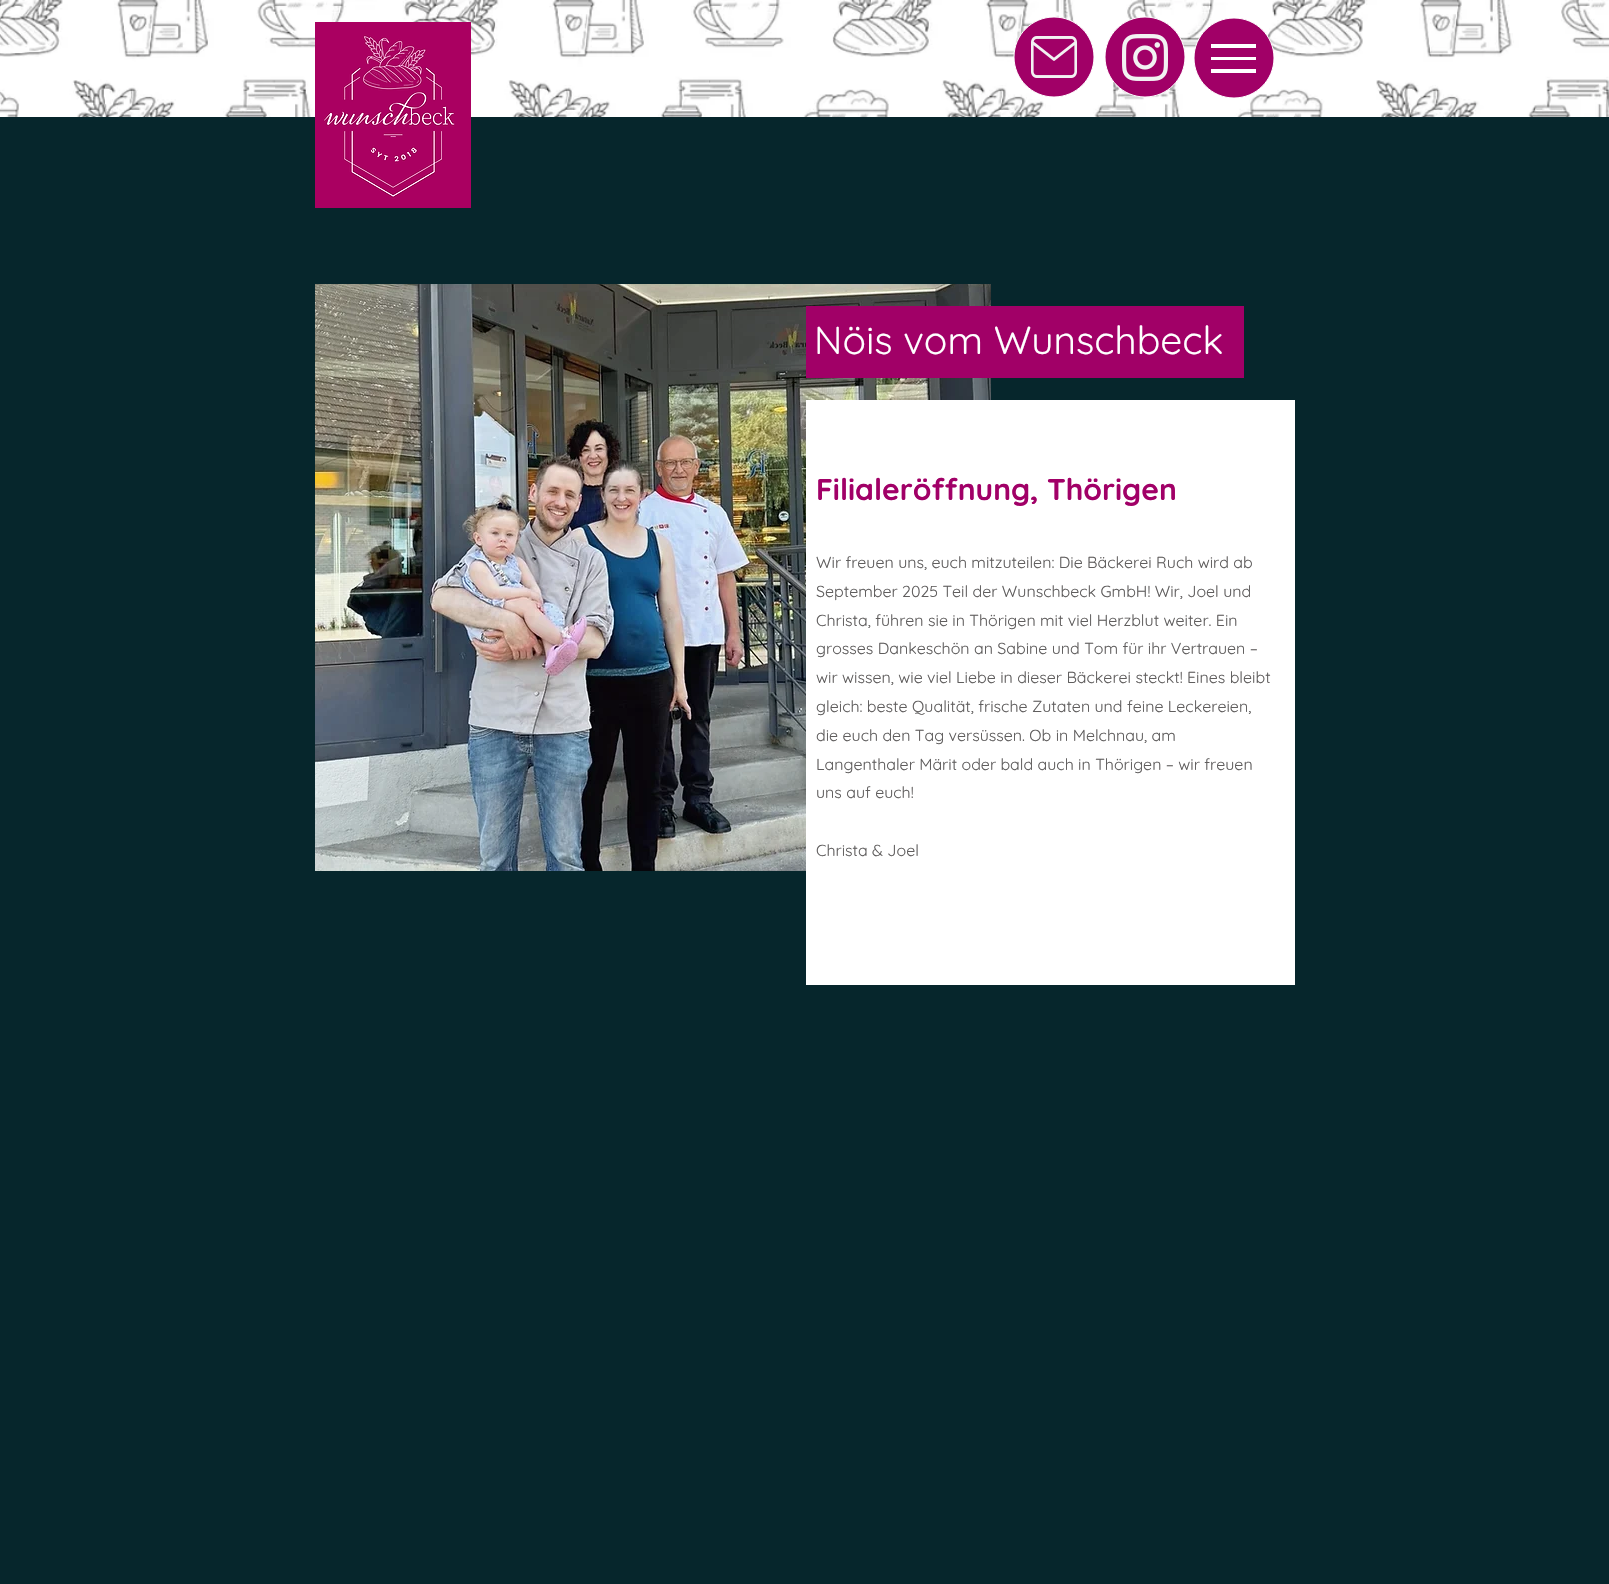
void draw(SkCanvas* canvas) {
  SkPaint paint;
  paint.setAntiAlias(true);
  auto face = [&](const char* family, int weight, float size, bool italic = false) {
    SkFontStyle style(weight, SkFontStyle::kNormal_Width,
      italic ? SkFontStyle::kItalic_Slant : SkFontStyle::kUpright_Slant);
    SkFont result(fontMgr->matchFamilyStyle(family, style), size);
    result.setSubpixel(true);
    return result;
  };
  auto paste = [&](const char* path, float x, float y, float w, float h) {
    auto image = SkImages::DeferredFromEncodedData(SkData::MakeFromFileName(path));
    canvas->drawImageRect(image, SkRect::MakeXYWH(x, y, w, h), SkSamplingOptions());
  };
  auto shape = [&](const char* data, bool evenOdd = false) {
    SkPath result = *SkParsePath::FromSVGString(data);
    if (evenOdd) result.setFillType(SkPathFillType::kEvenOdd);
    return result;
  };
  canvas->clear(0xff06262c);
  paste("img/1.png", 0, 0, 1609, 117);
  paste("img/2.png", 315, 22, 156, 186);
  paint.setColor(0xffa10067);
  canvas->drawPath(shape("M1094 57C1094 79 1076 97 1054 97C1032 97 1014 79 1014 57C1014 35 1032 17 1054 17C1076 17 1094 35 1094 57Z"), paint);
  paint.setStroke(true);
  paint.setStrokeWidth(1);
  paint.setColor(0xffffffff);
  canvas->drawPath(shape("M1094 57C1094 79 1076 97 1054 97C1032 97 1014 79 1014 57C1014 35 1032 17 1054 17C1076 17 1094 35 1094 57Z"), paint);
  paste("img/3.png", 1031, 36, 46, 42);
  paint.setStroke(false);
  paint.setColor(0xffa10067);
  canvas->drawPath(shape("M1185 57C1185 79 1167 97 1145 97C1123 97 1105 79 1105 57C1105 35 1123 17 1145 17C1167 17 1185 35 1185 57Z"), paint);
  paint.setStroke(true);
  paint.setColor(0xffffffff);
  canvas->drawPath(shape("M1185 57C1185 79 1167 97 1145 97C1123 97 1105 79 1105 57C1105 35 1123 17 1145 17C1167 17 1185 35 1185 57Z"), paint);
  paste("img/4.png", 1122, 34, 46, 47);
  paint.setStroke(false);
  paint.setColor(0xffa10067);
  canvas->drawPath(shape("M1274 58C1274 80 1256 98 1234 98C1212 98 1194 80 1194 58C1194 36 1212 18 1234 18C1256 18 1274 36 1274 58Z"), paint);
  paint.setStroke(true);
  paint.setColor(0xffffffff);
  canvas->drawPath(shape("M1274 58C1274 80 1256 98 1234 98C1212 98 1194 80 1194 58C1194 36 1212 18 1234 18C1256 18 1274 36 1274 58Z"), paint);
  paint.setStroke(false);
  {
    const struct { float x, y, w, h; SkColor color; } items[] = {
      {1211, 69, 45, 4, 0xffffffff},
      {1211, 44, 45, 4, 0xffffffff},
      {1211, 57, 45, 3, 0xffffffff},
    };
    for (auto [x, y, w, h, color] : items) {
      paint.setColor(color);
      canvas->drawRect(SkRect::MakeXYWH(x, y, w, h), paint);
    }
  }
  paste("img/5.png", 315, 284, 676, 587);
  paint.setColor(0xffa10067);
  canvas->drawRect(SkRect::MakeXYWH(806, 306, 438, 72), paint);
  paint.setColor(0xffffffff);
  canvas->drawRect(SkRect::MakeXYWH(806, 400, 489, 585), paint);
  auto f0 = face("Quicksand", 400, 39);
  canvas->drawString("Nöis vom Wunschbeck", 814, 354, f0, paint);
  auto f1 = face("Quicksand", 700, 30);
  paint.setColor(0xffa10067);
  canvas->drawString("Filialeröffnung, Thörigen", 816, 500, f1, paint);
  auto f2 = face("Quicksand", 400, 16);
  paint.setColor(0xff605e5e);
  {
    const struct { const char* s; float x, y; } items[] = {
      {"Wir freuen uns, euch mitzuteilen: Die Bäckerei Ruch wird ab", 816, 568},
      {"September 2025 Teil der Wunschbeck GmbH! Wir, Joel und", 816, 597},
      {"Christa, führen sie in Thörigen mit viel Herzblut weiter. Ein", 816, 626},
      {"grosses Dankeschön an Sabine und Tom für ihr Vertrauen –", 816, 654},
      {"wir wissen, wie viel Liebe in dieser Bäckerei steckt! Eines bleibt", 816, 683},
      {"gleich: beste Qualität, frische Zutaten und feine Leckereien,", 816, 712},
      {"die euch den Tag versüssen. Ob in Melchnau, am", 816, 741},
      {"Langenthaler Märit oder bald auch in Thörigen – wir freuen", 816, 770},
      {"uns auf euch!", 816, 798},
      {"Christa & Joel", 816, 856},
    };
    for (auto [s, x, y] : items) {
      canvas->drawString(s, x, y, f2, paint);
    }
  }
}
